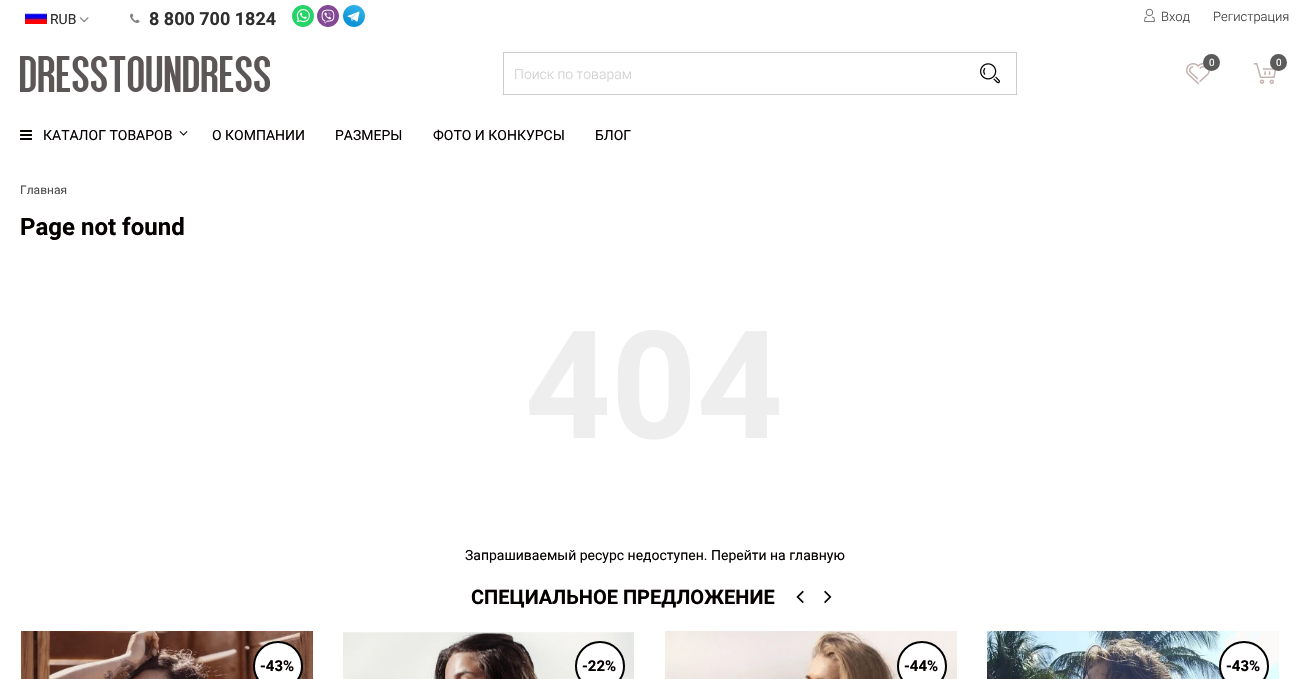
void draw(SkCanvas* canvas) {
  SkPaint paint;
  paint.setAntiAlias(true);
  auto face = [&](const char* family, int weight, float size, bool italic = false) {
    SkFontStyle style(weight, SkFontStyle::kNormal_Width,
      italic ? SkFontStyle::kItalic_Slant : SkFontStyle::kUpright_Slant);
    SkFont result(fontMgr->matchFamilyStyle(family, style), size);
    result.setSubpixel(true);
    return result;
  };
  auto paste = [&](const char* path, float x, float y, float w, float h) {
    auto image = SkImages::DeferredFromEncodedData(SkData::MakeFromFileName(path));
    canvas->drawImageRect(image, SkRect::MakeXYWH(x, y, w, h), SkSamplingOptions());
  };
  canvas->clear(0xffffffff);
  paste("img/1.png", 25, 13, 22, 11);
  paste("img/2.png", 79, 17, 10, 6);
  paste("img/3.png", 130, 13, 10, 10);
  paste("img/4.png", 292, 5, 22, 22);
  paste("img/5.png", 317, 5, 22, 22);
  paste("img/6.png", 343, 5, 22, 22);
  paste("img/7.png", 1144, 8, 11, 14);
  paste("img/8.png", 20, 56, 250, 36);
  paste("img/9.png", 1186, 63, 24, 22);
  paint.setColor(0xff5b5b5b);
  canvas->drawCircle(1211.5f, 62.5f, 8.5f, paint);
  paste("img/10.png", 1253, 63, 23, 21);
  canvas->drawCircle(1278.5f, 62.5f, 8.5f, paint);
  paint.setStroke(true);
  paint.setStrokeWidth(1);
  paint.setColor(0xffcccccc);
  canvas->drawRect(SkRect::MakeXYWH(503.5f, 52.5f, 513, 42), paint);
  paste("img/11.png", 980, 63, 20, 21);
  paste("img/12.png", 20, 130, 12, 10);
  paste("img/13.png", 179, 131, 9, 5);
  paste("img/14.png", 796, 590, 8, 13);
  paste("img/15.png", 824, 590, 8, 13);
  paste("img/16.png", 21, 631, 292, 48);
  paint.setStroke(false);
  paint.setColor(0xffffffff);
  canvas->drawCircle(278, 666, 24, paint);
  paint.setStroke(true);
  paint.setStrokeWidth(2);
  paint.setColor(0xff000000);
  canvas->drawCircle(278, 666, 24, paint);
  paste("img/17.png", 343, 632, 291, 47);
  paint.setStroke(false);
  paint.setColor(0xffffffff);
  canvas->drawCircle(600, 666, 24, paint);
  paint.setStroke(true);
  paint.setColor(0xff000000);
  canvas->drawCircle(600, 666, 24, paint);
  paste("img/18.png", 665, 631, 292, 48);
  paint.setStroke(false);
  paint.setColor(0xffffffff);
  canvas->drawCircle(922, 666, 24, paint);
  paint.setStroke(true);
  paint.setColor(0xff000000);
  canvas->drawCircle(922, 666, 24, paint);
  paste("img/19.png", 987, 631, 292, 48);
  paint.setStroke(false);
  paint.setColor(0xffffffff);
  canvas->drawCircle(1244, 666, 24, paint);
  paint.setStroke(true);
  paint.setColor(0xff000000);
  canvas->drawCircle(1244, 666, 24, paint);
  auto f0 = face("Roboto", 400, 14);
  paint.setStroke(false);
  paint.setColor(0xff2f2f2f);
  canvas->drawString("RUB", 50, 24, f0, paint);
  auto f1 = face("Roboto", 700, 18);
  canvas->drawString("8 800 700 1824", 149, 25, f1, paint);
  auto f2 = face("Roboto", 300, 13);
  paint.setColor(0xff3c3a3a);
  canvas->drawString("Вход", 1161, 21, f2, paint);
  canvas->drawString("Регистрация", 1213, 21, f2, paint);
  auto f3 = face("Roboto", 400, 10);
  paint.setColor(0xffffffff);
  canvas->drawString("0", 1209, 66, f3, paint);
  canvas->drawString("0", 1276, 66, f3, paint);
  auto f4 = face("Roboto", 300, 14);
  paint.setColor(0xffcfcfcf);
  canvas->drawString("Поиск по товарам", 514, 79, f4, paint);
  paint.setColor(0xff050000);
  {
    const struct { const char* s; float x, y; } items[] = {
      {"КАТАЛОГ ТОВАРОВ", 43, 140},
      {"О КОМПАНИИ", 212, 140},
      {"РАЗМЕРЫ", 335, 140},
      {"ФОТО И КОНКУРСЫ", 433, 140},
      {"БЛОГ", 595, 140},
    };
    for (auto [s, x, y] : items) {
      canvas->drawString(s, x, y, f0, paint);
    }
  }
  auto f5 = face("Roboto", 400, 12);
  paint.setColor(0xff4b4b4b);
  canvas->drawString("Главная", 20, 194, f5, paint);
  auto f6 = face("Roboto", 700, 24);
  paint.setColor(0xff050000);
  canvas->drawString("Page not found", 20, 235, f6, paint);
  auto f7 = face("Roboto", 700, 150);
  paint.setColor(0xffeeeeee);
  canvas->drawString("404", 525, 438, f7, paint);
  paint.setColor(0xff050000);
  canvas->drawString("Запрашиваемый ресурс недоступен.", 465, 560, f0, paint);
  canvas->drawString("Перейти на главную", 711, 560, f0, paint);
  auto f8 = face("Roboto", 700, 20);
  canvas->drawString("СПЕЦИАЛЬНОЕ ПРЕДЛОЖЕНИЕ", 471, 604, f8, paint);
  auto f9 = face("Roboto", 700, 15);
  {
    const struct { const char* s; float x, y; } items[] = {
      {"-43%", 260, 671},
      {"-22%", 582, 671},
      {"-44%", 904, 671},
      {"-43%", 1226, 671},
    };
    for (auto [s, x, y] : items) {
      canvas->drawString(s, x, y, f9, paint);
    }
  }
}
